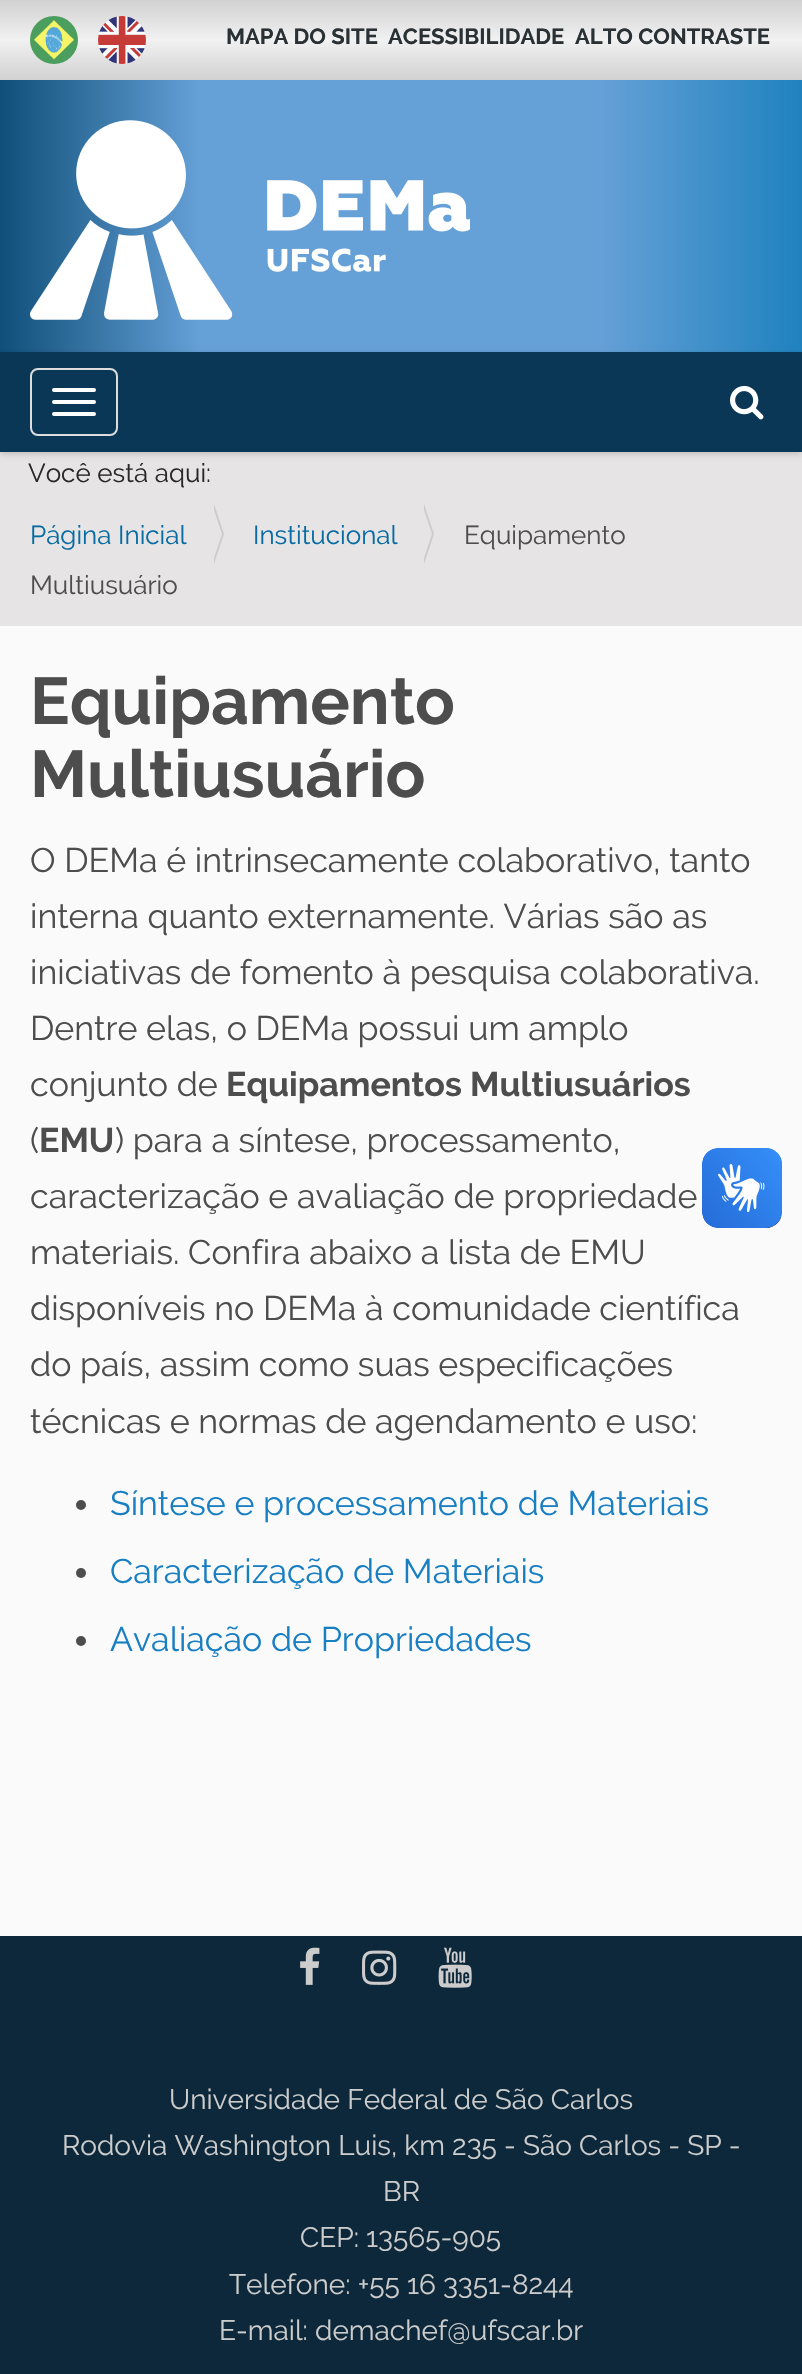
void draw(SkCanvas* canvas) {
  SkPaint paint;
  paint.setAntiAlias(true);
  auto face = [&](const char* family, int weight, float size, bool italic = false) {
    SkFontStyle style(weight, SkFontStyle::kNormal_Width,
      italic ? SkFontStyle::kItalic_Slant : SkFontStyle::kUpright_Slant);
    SkFont result(fontMgr->matchFamilyStyle(family, style), size);
    result.setSubpixel(true);
    return result;
  };
  auto paste = [&](const char* path, float x, float y, float w, float h) {
    auto image = SkImages::DeferredFromEncodedData(SkData::MakeFromFileName(path));
    canvas->drawImageRect(image, SkRect::MakeXYWH(x, y, w, h), SkSamplingOptions());
  };
  auto shape = [&](const char* data, bool evenOdd = false) {
    SkPath result = *SkParsePath::FromSVGString(data);
    if (evenOdd) result.setFillType(SkPathFillType::kEvenOdd);
    return result;
  };
  canvas->clear(0xfffafafa);
  {
    const SkColor colors[] = {0xffd2d1d1, 0xffe2e1e1, 0xfff1f1f1, 0xffe2e1e1, 0xffd2d1d1};
    const float stops[] = {0, 0.25f, 0.5f, 0.75f, 1};
    const SkPoint ends[] = {{401, 0}, {401, 80}};
    paint.setShader(SkGradientShader::MakeLinear(ends, colors, stops, 5, SkTileMode::kClamp));
    paint.setAlpha(255);
  }
  canvas->drawRect(SkRect::MakeXYWH(0, 0, 802, 80), paint);
  paste("img/1.png", 30, 16, 48, 48);
  paste("img/2.png", 98, 16, 48, 48);
  {
    const SkColor colors[] = {0xff0f4f79, 0xff65a0d7, 0xff65a0d7, 0xff1f82bf};
    const float stops[] = {0, 0.25f, 0.75f, 1};
    const SkPoint ends[] = {{0, 176}, {802, 176}};
    paint.setShader(SkGradientShader::MakeLinear(ends, colors, stops, 4, SkTileMode::kClamp));
    paint.setAlpha(255);
  }
  canvas->drawRect(SkRect::MakeXYWH(0, 80, 802, 272), paint);
  paint.setShader(nullptr);
  paint.setColor(0xffe6e4e4);
  canvas->drawRect(SkRect::MakeXYWH(0, 452, 802, 174), paint);
  paint.setColor(0x2b000000);
  paint.setMaskFilter(SkMaskFilter::MakeBlur(kNormal_SkBlurStyle, 3));
  canvas->drawRect(SkRect::MakeXYWH(0, 354, 802, 100), paint);
  paint.setMaskFilter(nullptr);
  paint.setColor(0xff093755);
  canvas->drawRect(SkRect::MakeXYWH(0, 352, 802, 100), paint);
  paste("img/3.png", 730, 385, 34, 35);
  paste("img/4.png", 30, 120, 440, 200);
  paint.setStroke(true);
  paint.setStrokeWidth(2);
  paint.setColor(0xffdddddd);
  canvas->drawRoundRect(SkRect::MakeXYWH(31, 369, 86, 66), 7, 7, paint);
  paint.setStroke(false);
  paint.setColor(0xffffffff);
  canvas->drawRoundRect(SkRect::MakeXYWH(52, 388, 44, 4), 2, 2, paint);
  canvas->drawRoundRect(SkRect::MakeXYWH(52, 400, 44, 4), 2, 2, paint);
  canvas->drawRoundRect(SkRect::MakeXYWH(52, 412, 44, 4), 2, 2, paint);
  paint.setColor(0xffcccccc);
  canvas->drawPath(shape("M424 564V504L434 534Z"), paint);
  paint.setColor(0xffe6e4e4);
  canvas->drawPath(shape("M422 564V504L432 534Z"), paint);
  paint.setColor(0xffcccccc);
  canvas->drawPath(shape("M214 564V504L224 534Z"), paint);
  paint.setColor(0xffe6e4e4);
  canvas->drawPath(shape("M212 564V504L222 534Z"), paint);
  paint.setColor(0xff4d4d4d);
  canvas->drawCircle(81, 1505, 5, paint);
  canvas->drawCircle(81, 1573, 5, paint);
  canvas->drawCircle(81, 1641, 5, paint);
  paste("img/5.png", 702, 1148, 80, 80);
  paste("img/6.png", 702, 1148, 80, 80);
  paint.setColor(0xff0d283a);
  canvas->drawRect(SkRect::MakeXYWH(0, 1936, 802, 438), paint);
  paste("img/7.png", 300, 1947, 20, 38);
  paste("img/8.png", 362, 1950, 35, 35);
  paste("img/9.png", 438, 1947, 34, 41);
  auto f0 = face("Raleway", 700, 22);
  paint.setColor(0xff293135);
  {
    const struct { const char* s; float x, y; } items[] = {
      {"MAPA DO SITE", 226, 44},
      {"ACESSIBILIDADE", 388, 44},
      {"ALTO CONTRASTE", 575, 44},
    };
    for (auto [s, x, y] : items) {
      canvas->drawString(s, x, y, f0, paint);
    }
  }
  auto f1 = face("Raleway", 400, 26);
  paint.setColor(0xff282828);
  canvas->drawString("Você está aqui:", 28, 482, f1, paint);
  paint.setColor(0xff086ca3);
  canvas->drawString("Página Inicial", 30, 544, f1, paint);
  paint.setColor(0xff4d4d4d);
  canvas->drawString("Equipamento", 464, 544, f1, paint);
  canvas->drawString("Multiusuário", 30, 594, f1, paint);
  paint.setColor(0xff086ca3);
  canvas->drawString("Institucional", 253, 544, f1, paint);
  auto f2 = face("Raleway", 700, 66);
  paint.setColor(0xff4d4d4d);
  canvas->drawString("Equipamento", 30, 724, f2, paint);
  canvas->drawString("Multiusuário", 30, 797, f2, paint);
  auto f3 = face("Raleway", 400, 34);
  {
    const struct { const char* s; float x, y; } items[] = {
      {"O DEMa é intrinsecamente colaborativo, tanto", 30, 872},
      {"interna quanto externamente. Várias são as", 30, 928},
      {"iniciativas de fomento à pesquisa colaborativa.", 30, 984},
      {"Dentre elas, o DEMa possui um amplo", 30, 1040},
      {"conjunto de", 30, 1096},
    };
    for (auto [s, x, y] : items) {
      canvas->drawString(s, x, y, f3, paint);
    }
  }
  auto f4 = face("Raleway", 700, 34);
  canvas->drawString("Equipamentos Multiusuários", 226, 1096, f4, paint);
  canvas->drawString("(", 30, 1152, f3, paint);
  canvas->drawString("EMU", 39, 1152, f4, paint);
  {
    const struct { const char* s; float x, y; } items[] = {
      {") para a síntese, processamento,", 115, 1152},
      {"caracterização e avaliação de propriedade", 30, 1208},
      {"materiais. Confira abaixo a lista de EMU", 30, 1264},
      {"disponíveis no DEMa à comunidade científica", 30, 1320},
      {"do país, assim como suas especificações", 30, 1376},
      {"técnicas e normas de agendamento e uso:", 30, 1433},
    };
    for (auto [s, x, y] : items) {
      canvas->drawString(s, x, y, f3, paint);
    }
  }
  paint.setColor(0xff197fc3);
  {
    const struct { const char* s; float x, y; } items[] = {
      {"Síntese e processamento de Materiais", 110, 1515},
      {"Caracterização de Materiais", 110, 1583},
      {"Avaliação de Propriedades", 110, 1651},
    };
    for (auto [s, x, y] : items) {
      canvas->drawString(s, x, y, f3, paint);
    }
  }
  auto f5 = face("Raleway", 400, 28);
  paint.setColor(0xffcccccc);
  {
    const struct { const char* s; float x, y; } items[] = {
      {"Universidade Federal de São Carlos", 169, 2109},
      {"Rodovia Washington Luis, km 235 - São Carlos - SP -", 62, 2155},
      {"BR", 383, 2201},
      {"CEP: 13565-905", 300, 2247},
      {"Telefone: +55 16 3351-8244", 229, 2294},
      {"E-mail: demachef@ufscar.br", 219, 2340},
    };
    for (auto [s, x, y] : items) {
      canvas->drawString(s, x, y, f5, paint);
    }
  }
}
